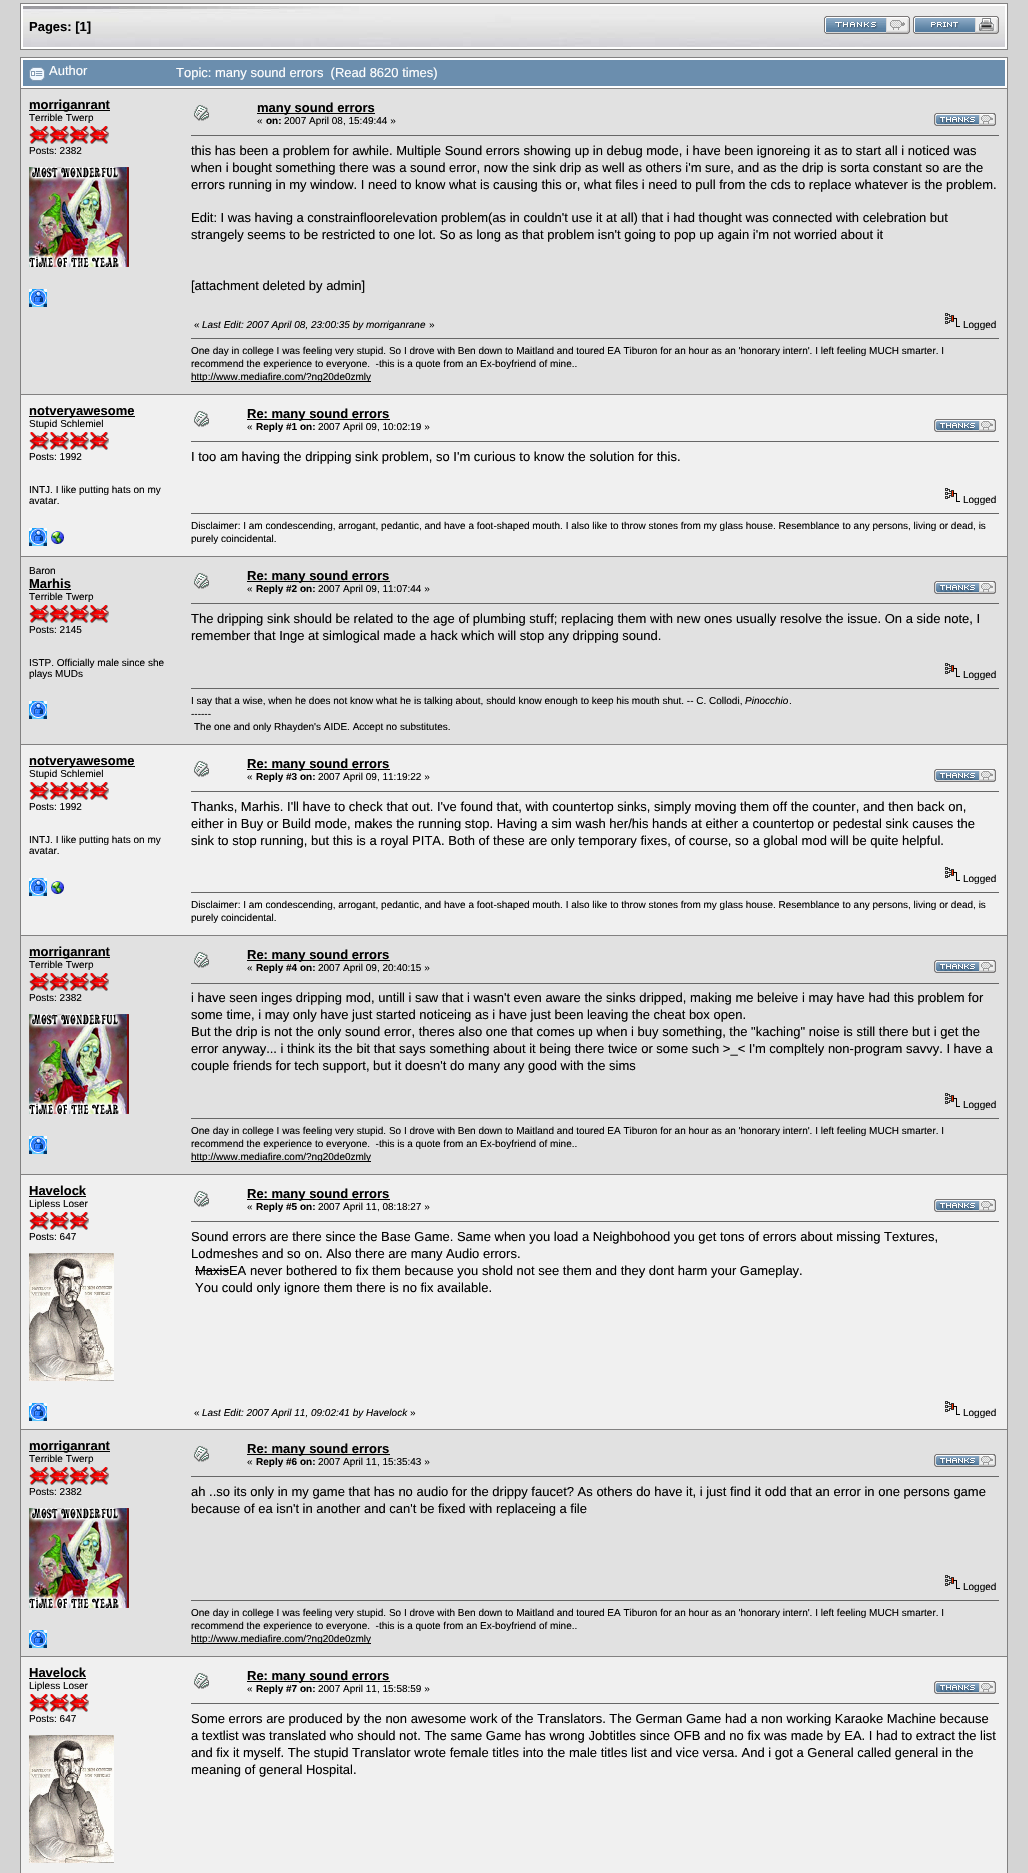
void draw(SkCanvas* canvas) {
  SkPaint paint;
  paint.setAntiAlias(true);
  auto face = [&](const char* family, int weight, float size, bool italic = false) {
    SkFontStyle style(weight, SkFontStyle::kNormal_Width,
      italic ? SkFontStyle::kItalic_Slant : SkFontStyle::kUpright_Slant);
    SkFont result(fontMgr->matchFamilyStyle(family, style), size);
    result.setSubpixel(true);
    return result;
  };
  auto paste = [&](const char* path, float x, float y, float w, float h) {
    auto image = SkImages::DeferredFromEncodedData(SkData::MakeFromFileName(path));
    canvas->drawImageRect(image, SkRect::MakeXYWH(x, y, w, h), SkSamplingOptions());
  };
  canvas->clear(0xffd4d4d4);
  paint.setColor(0xffffffff);
  canvas->drawRect(SkRect::MakeXYWH(20.5f, 3.5f, 987, 46), paint);
  paint.setStroke(true);
  paint.setStrokeWidth(1);
  paint.setColor(0xff828181);
  canvas->drawRect(SkRect::MakeXYWH(20.5f, 3.5f, 987, 46), paint);
  paste("img/1.png", 23, 6, 982, 41);
  paste("img/2.png", 824, 16, 86, 18);
  paste("img/3.png", 913, 16, 86, 18);
  paint.setStroke(false);
  {
    const struct { float x, y, w, h; SkColor color; } items[] = {
      {21, 58, 986, 30, 0xffffffff},
      {20, 57, 988, 1, 0xff828181},
      {1007, 57, 1, 31, 0xff828181},
      {20, 57, 1, 31, 0xff828181},
      {23, 60, 982, 26, 0xff6b8eae},
    };
    for (auto [x, y, w, h, color] : items) {
      paint.setColor(color);
      canvas->drawRect(SkRect::MakeXYWH(x, y, w, h), paint);
    }
  }
  paste("img/4.png", 29, 67, 16, 14);
  {
    const struct { float x, y, w, h; SkColor color; } items[] = {
      {20, 88, 988, 1785, 0xff828181},
      {21, 89, 986, 305, 0xffe1e1e1},
      {29, 110, 81, 1, 0xff000000},
    };
    for (auto [x, y, w, h, color] : items) {
      paint.setColor(color);
      canvas->drawRect(SkRect::MakeXYWH(x, y, w, h), paint);
    }
  }
  paste("img/5.png", 29, 126, 20, 18);
  paste("img/5.png", 49, 126, 20, 18);
  paste("img/5.png", 69, 126, 20, 18);
  paste("img/5.png", 89, 126, 20, 18);
  paste("img/6.png", 29, 167, 100, 100);
  paste("img/7.png", 29, 289, 18, 18);
  paste("img/8.png", 194, 105, 15, 16);
  canvas->drawRect(SkRect::MakeXYWH(257, 113, 118, 1), paint);
  paste("img/9.png", 934, 113, 62, 13);
  paint.setColor(0xff666666);
  canvas->drawRect(SkRect::MakeXYWH(191, 135, 808, 1), paint);
  paste("img/10.png", 945, 313, 15, 14);
  {
    const struct { float x, y, w, h; SkColor color; } items[] = {
      {191, 338, 808, 1, 0xff666666},
      {191, 381, 180, 1, 0xff000000},
      {21, 395, 986, 161, 0xfff0f0f0},
      {29, 416, 106, 1, 0xff000000},
    };
    for (auto [x, y, w, h, color] : items) {
      paint.setColor(color);
      canvas->drawRect(SkRect::MakeXYWH(x, y, w, h), paint);
    }
  }
  paste("img/11.png", 29, 432, 20, 18);
  paste("img/11.png", 49, 432, 20, 18);
  paste("img/11.png", 69, 432, 20, 18);
  paste("img/11.png", 89, 432, 20, 18);
  paste("img/7.png", 29, 528, 18, 18);
  paste("img/12.png", 51, 531, 13, 13);
  paste("img/13.png", 194, 411, 15, 16);
  canvas->drawRect(SkRect::MakeXYWH(247, 419, 143, 1), paint);
  paste("img/14.png", 934, 419, 62, 13);
  paint.setColor(0xff666666);
  canvas->drawRect(SkRect::MakeXYWH(191, 441, 808, 1), paint);
  paste("img/15.png", 945, 488, 15, 14);
  {
    const struct { float x, y, w, h; SkColor color; } items[] = {
      {191, 513, 808, 1, 0xff666666},
      {21, 557, 986, 187, 0xffe1e1e1},
      {29, 589, 42, 1, 0xff000000},
    };
    for (auto [x, y, w, h, color] : items) {
      paint.setColor(color);
      canvas->drawRect(SkRect::MakeXYWH(x, y, w, h), paint);
    }
  }
  paste("img/5.png", 29, 605, 20, 18);
  paste("img/5.png", 49, 605, 20, 18);
  paste("img/5.png", 69, 605, 20, 18);
  paste("img/5.png", 89, 605, 20, 18);
  paste("img/7.png", 29, 701, 18, 18);
  paste("img/8.png", 194, 573, 15, 16);
  canvas->drawRect(SkRect::MakeXYWH(247, 581, 143, 1), paint);
  paste("img/9.png", 934, 581, 62, 13);
  paint.setColor(0xff666666);
  canvas->drawRect(SkRect::MakeXYWH(191, 603, 808, 1), paint);
  paste("img/10.png", 945, 663, 15, 14);
  {
    const struct { float x, y, w, h; SkColor color; } items[] = {
      {191, 688, 808, 1, 0xff666666},
      {21, 745, 986, 190, 0xfff0f0f0},
      {29, 766, 106, 1, 0xff000000},
    };
    for (auto [x, y, w, h, color] : items) {
      paint.setColor(color);
      canvas->drawRect(SkRect::MakeXYWH(x, y, w, h), paint);
    }
  }
  paste("img/11.png", 29, 782, 20, 18);
  paste("img/11.png", 49, 782, 20, 18);
  paste("img/11.png", 69, 782, 20, 18);
  paste("img/11.png", 89, 782, 20, 18);
  paste("img/7.png", 29, 878, 18, 18);
  paste("img/12.png", 51, 881, 13, 13);
  paste("img/13.png", 194, 761, 15, 16);
  canvas->drawRect(SkRect::MakeXYWH(247, 769, 143, 1), paint);
  paste("img/14.png", 934, 769, 62, 13);
  paint.setColor(0xff666666);
  canvas->drawRect(SkRect::MakeXYWH(191, 791, 808, 1), paint);
  paste("img/15.png", 945, 867, 15, 14);
  {
    const struct { float x, y, w, h; SkColor color; } items[] = {
      {191, 892, 808, 1, 0xff666666},
      {21, 936, 986, 238, 0xffe1e1e1},
      {29, 957, 81, 1, 0xff000000},
    };
    for (auto [x, y, w, h, color] : items) {
      paint.setColor(color);
      canvas->drawRect(SkRect::MakeXYWH(x, y, w, h), paint);
    }
  }
  paste("img/5.png", 29, 973, 20, 18);
  paste("img/5.png", 49, 973, 20, 18);
  paste("img/5.png", 69, 973, 20, 18);
  paste("img/5.png", 89, 973, 20, 18);
  paste("img/6.png", 29, 1014, 100, 100);
  paste("img/7.png", 29, 1136, 18, 18);
  paste("img/8.png", 194, 952, 15, 16);
  canvas->drawRect(SkRect::MakeXYWH(247, 960, 143, 1), paint);
  paste("img/9.png", 934, 960, 62, 13);
  paint.setColor(0xff666666);
  canvas->drawRect(SkRect::MakeXYWH(191, 983, 808, 1), paint);
  paste("img/10.png", 945, 1093, 15, 14);
  {
    const struct { float x, y, w, h; SkColor color; } items[] = {
      {191, 1118, 808, 1, 0xff666666},
      {191, 1161, 180, 1, 0xff000000},
      {21, 1175, 986, 254, 0xfff0f0f0},
      {29, 1196, 57, 1, 0xff000000},
    };
    for (auto [x, y, w, h, color] : items) {
      paint.setColor(color);
      canvas->drawRect(SkRect::MakeXYWH(x, y, w, h), paint);
    }
  }
  paste("img/11.png", 29, 1212, 20, 18);
  paste("img/11.png", 49, 1212, 20, 18);
  paste("img/11.png", 69, 1212, 20, 18);
  paste("img/16.png", 29, 1253, 85, 128);
  paste("img/7.png", 29, 1403, 18, 18);
  paste("img/13.png", 194, 1191, 15, 16);
  canvas->drawRect(SkRect::MakeXYWH(247, 1199, 143, 1), paint);
  paste("img/14.png", 934, 1199, 62, 13);
  paint.setColor(0xff666666);
  canvas->drawRect(SkRect::MakeXYWH(191, 1221, 808, 1), paint);
  paint.setColor(0xff000000);
  canvas->drawRect(SkRect::MakeXYWH(195, 1270, 34, 1), paint);
  paste("img/15.png", 945, 1401, 15, 14);
  paint.setColor(0xffe1e1e1);
  canvas->drawRect(SkRect::MakeXYWH(21, 1430, 986, 226), paint);
  paint.setColor(0xff000000);
  canvas->drawRect(SkRect::MakeXYWH(29, 1451, 81, 1), paint);
  paste("img/5.png", 29, 1467, 20, 18);
  paste("img/5.png", 49, 1467, 20, 18);
  paste("img/5.png", 69, 1467, 20, 18);
  paste("img/5.png", 89, 1467, 20, 18);
  paste("img/6.png", 29, 1508, 100, 100);
  paste("img/7.png", 29, 1630, 18, 18);
  paste("img/8.png", 194, 1446, 15, 16);
  canvas->drawRect(SkRect::MakeXYWH(247, 1454, 143, 1), paint);
  paste("img/9.png", 934, 1454, 62, 13);
  paint.setColor(0xff666666);
  canvas->drawRect(SkRect::MakeXYWH(191, 1476, 808, 1), paint);
  paste("img/10.png", 945, 1575, 15, 14);
  {
    const struct { float x, y, w, h; SkColor color; } items[] = {
      {191, 1600, 808, 1, 0xff666666},
      {191, 1643, 180, 1, 0xff000000},
      {21, 1657, 986, 216, 0xfff0f0f0},
      {29, 1678, 57, 1, 0xff000000},
    };
    for (auto [x, y, w, h, color] : items) {
      paint.setColor(color);
      canvas->drawRect(SkRect::MakeXYWH(x, y, w, h), paint);
    }
  }
  paste("img/11.png", 29, 1694, 20, 18);
  paste("img/11.png", 49, 1694, 20, 18);
  paste("img/11.png", 69, 1694, 20, 18);
  paste("img/16.png", 29, 1735, 85, 128);
  paste("img/13.png", 194, 1673, 15, 16);
  canvas->drawRect(SkRect::MakeXYWH(247, 1681, 143, 1), paint);
  paste("img/14.png", 934, 1681, 62, 13);
  paint.setColor(0xff666666);
  canvas->drawRect(SkRect::MakeXYWH(191, 1703, 808, 1), paint);
  auto f0 = face("Liberation Sans", 700, 13);
  paint.setColor(0xff000000);
  canvas->drawString("Pages: [1]", 29, 31, f0, paint);
  auto f1 = face("Liberation Sans", 400, 13);
  paint.setColor(0xffffffff);
  canvas->drawString("Author", 49, 75, f1, paint);
  canvas->drawString("Topic: many sound errors  (Read 8620 times)", 176, 77, f1, paint);
  paint.setColor(0xff000000);
  canvas->drawString("morriganrant", 29, 109, f0, paint);
  auto f2 = face("Liberation Sans", 400, 10);
  canvas->drawString("Terrible Twerp", 29, 121, f2, paint);
  canvas->drawString("Posts: 2382", 29, 154, f2, paint);
  canvas->drawString("many sound errors", 257, 112, f0, paint);
  canvas->drawString("«", 257, 124, f2, paint);
  auto f3 = face("Liberation Sans", 700, 10);
  canvas->drawString("on:", 266, 124, f3, paint);
  canvas->drawString("2007 April 08, 15:49:44 »", 284, 124, f2, paint);
  {
    const struct { const char* s; float x, y; } items[] = {
      {"this has been a problem for awhile. Multiple Sound errors showing up in debug mode, i have been ignoreing it as to start all i noticed was", 191, 155},
      {"when i bought something there was a sound error, now the sink drip as well as others i'm sure, and as the drip is sorta constant so are the", 191, 172},
      {"errors running in my window. I need to know what is causing this or, what files i need to pull from the cds to replace whatever is the problem.", 191, 189},
      {"Edit: I was having a constrainfloorelevation problem(as in couldn't use it at all) that i had thought was connected with celebration but", 191, 222},
      {"strangely seems to be restricted to one lot. So as long as that problem isn't going to pop up again i'm not worried about it", 191, 239},
      {"[attachment deleted by admin]", 191, 290},
    };
    for (auto [s, x, y] : items) {
      canvas->drawString(s, x, y, f1, paint);
    }
  }
  canvas->drawString("«", 194, 328, f2, paint);
  auto f4 = face("Liberation Sans", 400, 10, true);
  canvas->drawString("Last Edit: 2007 April 08, 23:00:35 by morriganrane", 202, 328, f4, paint);
  {
    const struct { const char* s; float x, y; } items[] = {
      {"»", 429, 328},
      {"Logged", 963, 328},
      {"One day in college I was feeling very stupid. So I drove with Ben down to Maitland and toured EA Tiburon for an hour as an 'honorary intern'. I left feeling MUCH smarter. I", 191, 354},
      {"recommend the experience to everyone.  -this is a quote from an Ex-boyfriend of mine..", 191, 367},
      {"http://www.mediafire.com/?ng20de0zmly", 191, 380},
    };
    for (auto [s, x, y] : items) {
      canvas->drawString(s, x, y, f2, paint);
    }
  }
  canvas->drawString("notveryawesome", 29, 415, f0, paint);
  {
    const struct { const char* s; float x, y; } items[] = {
      {"Stupid Schlemiel", 29, 427},
      {"Posts: 1992", 29, 460},
      {"INTJ. I like putting hats on my", 29, 493},
      {"avatar.", 29, 504},
    };
    for (auto [s, x, y] : items) {
      canvas->drawString(s, x, y, f2, paint);
    }
  }
  canvas->drawString("Re: many sound errors", 247, 418, f0, paint);
  canvas->drawString("«", 247, 430, f2, paint);
  canvas->drawString("Reply #1 on:", 256, 430, f3, paint);
  canvas->drawString("2007 April 09, 10:02:19 »", 318, 430, f2, paint);
  canvas->drawString("I too am having the dripping sink problem, so I'm curious to know the solution for this.", 191, 461, f1, paint);
  {
    const struct { const char* s; float x, y; } items[] = {
      {"Logged", 963, 503},
      {"Disclaimer: I am condescending, arrogant, pedantic, and have a foot-shaped mouth. I also like to throw stones from my glass house. Resemblance to any persons, living or dead, is", 191, 529},
      {"purely coincidental.", 191, 542},
      {"Baron", 29, 574},
    };
    for (auto [s, x, y] : items) {
      canvas->drawString(s, x, y, f2, paint);
    }
  }
  canvas->drawString("Marhis", 29, 588, f0, paint);
  {
    const struct { const char* s; float x, y; } items[] = {
      {"Terrible Twerp", 29, 600},
      {"Posts: 2145", 29, 633},
      {"ISTP. Officially male since she", 29, 666},
      {"plays MUDs", 29, 677},
    };
    for (auto [s, x, y] : items) {
      canvas->drawString(s, x, y, f2, paint);
    }
  }
  canvas->drawString("Re: many sound errors", 247, 580, f0, paint);
  canvas->drawString("«", 247, 592, f2, paint);
  canvas->drawString("Reply #2 on:", 256, 592, f3, paint);
  canvas->drawString("2007 April 09, 11:07:44 »", 318, 592, f2, paint);
  canvas->drawString("The dripping sink should be related to the age of plumbing stuff; replacing them with new ones usually resolve the issue. On a side note, I", 191, 623, f1, paint);
  canvas->drawString("remember that Inge at simlogical made a hack which will stop any dripping sound.", 191, 640, f1, paint);
  canvas->drawString("Logged", 963, 678, f2, paint);
  canvas->drawString("I say that a wise, when he does not know what he is talking about, should know enough to keep his mouth shut. -- C. Collodi,", 191, 704, f2, paint);
  canvas->drawString("Pinocchio", 745, 704, f4, paint);
  {
    const struct { const char* s; float x, y; } items[] = {
      {".", 789, 704},
      {"------", 191, 717},
      {"The one and only Rhayden's AIDE. Accept no substitutes.", 194, 730},
    };
    for (auto [s, x, y] : items) {
      canvas->drawString(s, x, y, f2, paint);
    }
  }
  canvas->drawString("notveryawesome", 29, 765, f0, paint);
  {
    const struct { const char* s; float x, y; } items[] = {
      {"Stupid Schlemiel", 29, 777},
      {"Posts: 1992", 29, 810},
      {"INTJ. I like putting hats on my", 29, 843},
      {"avatar.", 29, 854},
    };
    for (auto [s, x, y] : items) {
      canvas->drawString(s, x, y, f2, paint);
    }
  }
  canvas->drawString("Re: many sound errors", 247, 768, f0, paint);
  canvas->drawString("«", 247, 780, f2, paint);
  canvas->drawString("Reply #3 on:", 256, 780, f3, paint);
  canvas->drawString("2007 April 09, 11:19:22 »", 318, 780, f2, paint);
  {
    const struct { const char* s; float x, y; } items[] = {
      {"Thanks, Marhis. I'll have to check that out. I've found that, with countertop sinks, simply moving them off the counter, and then back on,", 191, 811},
      {"either in Buy or Build mode, makes the running stop. Having a sim wash her/his hands at either a countertop or pedestal sink causes the", 191, 828},
      {"sink to stop running, but this is a royal PITA. Both of these are only temporary fixes, of course, so a global mod will be quite helpful.", 191, 845},
    };
    for (auto [s, x, y] : items) {
      canvas->drawString(s, x, y, f1, paint);
    }
  }
  {
    const struct { const char* s; float x, y; } items[] = {
      {"Logged", 963, 882},
      {"Disclaimer: I am condescending, arrogant, pedantic, and have a foot-shaped mouth. I also like to throw stones from my glass house. Resemblance to any persons, living or dead, is", 191, 908},
      {"purely coincidental.", 191, 921},
    };
    for (auto [s, x, y] : items) {
      canvas->drawString(s, x, y, f2, paint);
    }
  }
  canvas->drawString("morriganrant", 29, 956, f0, paint);
  canvas->drawString("Terrible Twerp", 29, 968, f2, paint);
  canvas->drawString("Posts: 2382", 29, 1001, f2, paint);
  canvas->drawString("Re: many sound errors", 247, 959, f0, paint);
  canvas->drawString("«", 247, 971, f2, paint);
  canvas->drawString("Reply #4 on:", 256, 971, f3, paint);
  canvas->drawString("2007 April 09, 20:40:15 »", 318, 971, f2, paint);
  {
    const struct { const char* s; float x, y; } items[] = {
      {"i have seen inges dripping mod, untill i saw that i wasn't even aware the sinks dripped, making me beleive i may have had this problem for", 191, 1002},
      {"some time, i may only have just started noticeing as i have just been leaving the cheat box open.", 191, 1019},
      {"But the drip is not the only sound error, theres also one that comes up when i buy something, the \"kaching\" noise is still there but i get the", 191, 1036},
      {"error anyway... i think its the bit that says something about it being there twice or some such >_< I'm compltely non-program savvy. I have a", 191, 1053},
      {"couple friends for tech support, but it doesn't do many any good with the sims", 191, 1070},
    };
    for (auto [s, x, y] : items) {
      canvas->drawString(s, x, y, f1, paint);
    }
  }
  {
    const struct { const char* s; float x, y; } items[] = {
      {"Logged", 963, 1108},
      {"One day in college I was feeling very stupid. So I drove with Ben down to Maitland and toured EA Tiburon for an hour as an 'honorary intern'. I left feeling MUCH smarter. I", 191, 1134},
      {"recommend the experience to everyone.  -this is a quote from an Ex-boyfriend of mine..", 191, 1147},
      {"http://www.mediafire.com/?ng20de0zmly", 191, 1160},
    };
    for (auto [s, x, y] : items) {
      canvas->drawString(s, x, y, f2, paint);
    }
  }
  canvas->drawString("Havelock", 29, 1195, f0, paint);
  canvas->drawString("Lipless Loser", 29, 1207, f2, paint);
  canvas->drawString("Posts: 647", 29, 1240, f2, paint);
  canvas->drawString("Re: many sound errors", 247, 1198, f0, paint);
  canvas->drawString("«", 247, 1210, f2, paint);
  canvas->drawString("Reply #5 on:", 256, 1210, f3, paint);
  canvas->drawString("2007 April 11, 08:18:27 »", 318, 1210, f2, paint);
  {
    const struct { const char* s; float x, y; } items[] = {
      {"Sound errors are there since the Base Game. Same when you load a Neighbohood you get tons of errors about missing Textures,", 191, 1241},
      {"Lodmeshes and so on. Also there are many Audio errors.", 191, 1258},
      {"MaxisEA never bothered to fix them because you shold not see them and they dont harm your Gameplay.", 195, 1275},
      {"You could only ignore them there is no fix available.", 195, 1292},
    };
    for (auto [s, x, y] : items) {
      canvas->drawString(s, x, y, f1, paint);
    }
  }
  canvas->drawString("«", 194, 1416, f2, paint);
  canvas->drawString("Last Edit: 2007 April 11, 09:02:41 by Havelock", 202, 1416, f4, paint);
  canvas->drawString("»", 410, 1416, f2, paint);
  canvas->drawString("Logged", 963, 1416, f2, paint);
  canvas->drawString("morriganrant", 29, 1450, f0, paint);
  canvas->drawString("Terrible Twerp", 29, 1462, f2, paint);
  canvas->drawString("Posts: 2382", 29, 1495, f2, paint);
  canvas->drawString("Re: many sound errors", 247, 1453, f0, paint);
  canvas->drawString("«", 247, 1465, f2, paint);
  canvas->drawString("Reply #6 on:", 256, 1465, f3, paint);
  canvas->drawString("2007 April 11, 15:35:43 »", 318, 1465, f2, paint);
  canvas->drawString("ah ..so its only in my game that has no audio for the drippy faucet? As others do have it, i just find it odd that an error in one persons game", 191, 1496, f1, paint);
  canvas->drawString("because of ea isn't in another and can't be fixed with replaceing a file", 191, 1513, f1, paint);
  {
    const struct { const char* s; float x, y; } items[] = {
      {"Logged", 963, 1590},
      {"One day in college I was feeling very stupid. So I drove with Ben down to Maitland and toured EA Tiburon for an hour as an 'honorary intern'. I left feeling MUCH smarter. I", 191, 1616},
      {"recommend the experience to everyone.  -this is a quote from an Ex-boyfriend of mine..", 191, 1629},
      {"http://www.mediafire.com/?ng20de0zmly", 191, 1642},
    };
    for (auto [s, x, y] : items) {
      canvas->drawString(s, x, y, f2, paint);
    }
  }
  canvas->drawString("Havelock", 29, 1677, f0, paint);
  canvas->drawString("Lipless Loser", 29, 1689, f2, paint);
  canvas->drawString("Posts: 647", 29, 1722, f2, paint);
  canvas->drawString("Re: many sound errors", 247, 1680, f0, paint);
  canvas->drawString("«", 247, 1692, f2, paint);
  canvas->drawString("Reply #7 on:", 256, 1692, f3, paint);
  canvas->drawString("2007 April 11, 15:58:59 »", 318, 1692, f2, paint);
  {
    const struct { const char* s; float x, y; } items[] = {
      {"Some errors are produced by the non awesome work of the Translators. The German Game had a non working Karaoke Machine because", 191, 1723},
      {"a textlist was translated who should not. The same Game has wrong Jobtitles since OFB and no fix was made by EA. I had to extract the list", 191, 1740},
      {"and fix it myself. The stupid Translator wrote female titles into the male titles list and vice versa. And i got a General called general in the", 191, 1757},
      {"meaning of general Hospital.", 191, 1774},
    };
    for (auto [s, x, y] : items) {
      canvas->drawString(s, x, y, f1, paint);
    }
  }
}
